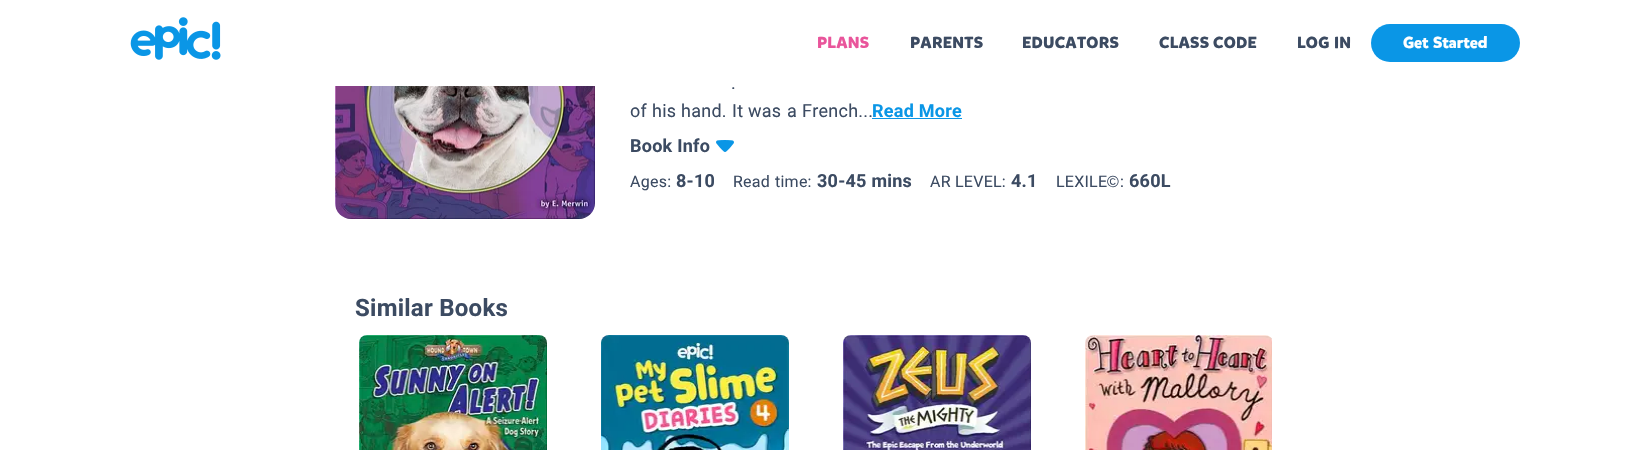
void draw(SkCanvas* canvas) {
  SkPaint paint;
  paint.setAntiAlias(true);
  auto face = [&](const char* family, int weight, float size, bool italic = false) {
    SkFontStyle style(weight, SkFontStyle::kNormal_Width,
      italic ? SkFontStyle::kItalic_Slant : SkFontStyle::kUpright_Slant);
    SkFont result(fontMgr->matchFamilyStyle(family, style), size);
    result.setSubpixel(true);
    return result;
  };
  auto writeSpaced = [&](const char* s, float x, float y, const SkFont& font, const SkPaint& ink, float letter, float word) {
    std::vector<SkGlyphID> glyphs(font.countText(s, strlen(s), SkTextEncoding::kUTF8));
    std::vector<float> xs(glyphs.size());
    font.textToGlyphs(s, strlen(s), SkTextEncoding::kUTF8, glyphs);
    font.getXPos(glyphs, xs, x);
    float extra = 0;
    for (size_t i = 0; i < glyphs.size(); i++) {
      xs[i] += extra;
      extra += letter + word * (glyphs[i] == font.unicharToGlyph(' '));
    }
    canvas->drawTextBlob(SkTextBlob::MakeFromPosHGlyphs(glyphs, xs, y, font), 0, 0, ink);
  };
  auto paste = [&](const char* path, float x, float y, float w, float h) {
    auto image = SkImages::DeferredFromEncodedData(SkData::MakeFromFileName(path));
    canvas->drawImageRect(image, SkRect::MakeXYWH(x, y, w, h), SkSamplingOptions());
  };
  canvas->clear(0xffffffff);
  paste("img/1.png", 130, 17, 91, 43);
  paint.setColor(0xff0a96e6);
  canvas->drawRoundRect(SkRect::MakeXYWH(1371, 24, 149, 38), 19, 19, paint);
  paste("img/2.png", 335, 86, 260, 133);
  canvas->drawRect(SkRect::MakeXYWH(872, 118, 90, 1), paint);
  paste("img/3.png", 716, 140, 18, 12);
  paste("img/4.png", 359, 335, 188, 115);
  paste("img/5.png", 601, 335, 188, 115);
  paste("img/6.png", 843, 335, 188, 115);
  paste("img/7.png", 1085, 335, 187, 115);
  auto f0 = face("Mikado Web", 700, 16);
  paint.setColor(0xffe9559b);
  writeSpaced("PLANS", 817, 48, f0, paint, 0.25f, 0);
  paint.setColor(0xff3c4b62);
  {
    const struct { const char* s; float x, y; } items[] = {
      {"PARENTS", 910, 48},
      {"EDUCATORS", 1022, 48},
      {"CLASS", 1159, 48},
      {"CODE", 1213, 48},
      {"LOG", 1297, 48},
      {"IN", 1334, 48},
    };
    for (auto [s, x, y] : items) {
      writeSpaced(s, x, y, f0, paint, 0.25f, 0);
    }
  }
  paint.setColor(0xffffffff);
  canvas->drawString("Get", 1403, 48, f0, paint);
  canvas->drawString("Started", 1433, 48, f0, paint);
  auto f1 = face("Roboto", 400, 18);
  paint.setColor(0xff3c4b62);
  {
    const struct { const char* s; float x, y; } items[] = {
      {".", 731, 89},
      {"of", 630, 117},
      {"his", 652, 117},
      {"hand.", 681, 117},
      {"It", 732, 117},
      {"was", 748, 117},
      {"a", 787, 117},
      {"French...", 802, 117},
    };
    for (auto [s, x, y] : items) {
      writeSpaced(s, x, y, f1, paint, 0.25f, 0);
    }
  }
  auto f2 = face("Roboto", 700, 18);
  paint.setColor(0xff0a96e6);
  writeSpaced("Read More", 872, 117, f2, paint, 0.25f, 0);
  paint.setColor(0xff3c4b62);
  writeSpaced("Book Info", 630, 152, f2, paint, 0.25f, 0);
  auto f3 = face("Roboto", 400, 16);
  writeSpaced("Ages:", 630, 187, f3, paint, 0.25f, 0);
  writeSpaced("8-10", 676, 187, f2, paint, 0.25f, 0);
  writeSpaced("Read", 733, 187, f3, paint, 0.25f, 0);
  writeSpaced("time:", 775, 187, f3, paint, 0.25f, 0);
  writeSpaced("30-45 mins", 817, 187, f2, paint, 0.25f, 0);
  writeSpaced("AR", 930, 187, f3, paint, 0.25f, 0);
  writeSpaced("LEVEL:", 955, 187, f3, paint, 0.25f, 0);
  writeSpaced("4.1", 1011, 187, f2, paint, 0.25f, 0);
  writeSpaced("LEXILE", 1056, 187, f3, paint, 0.25f, 0);
  auto f4 = face("Liberation Sans", 400, 16);
  writeSpaced("©", 1107, 187, f4, paint, 0.25f, 0);
  writeSpaced(":", 1120, 187, f3, paint, 0.25f, 0);
  writeSpaced("660L", 1129, 187, f2, paint, 0.25f, 0);
  auto f5 = face("Roboto", 700, 24);
  writeSpaced("Similar Books", 355, 316, f5, paint, 0.25f, 0);
}
